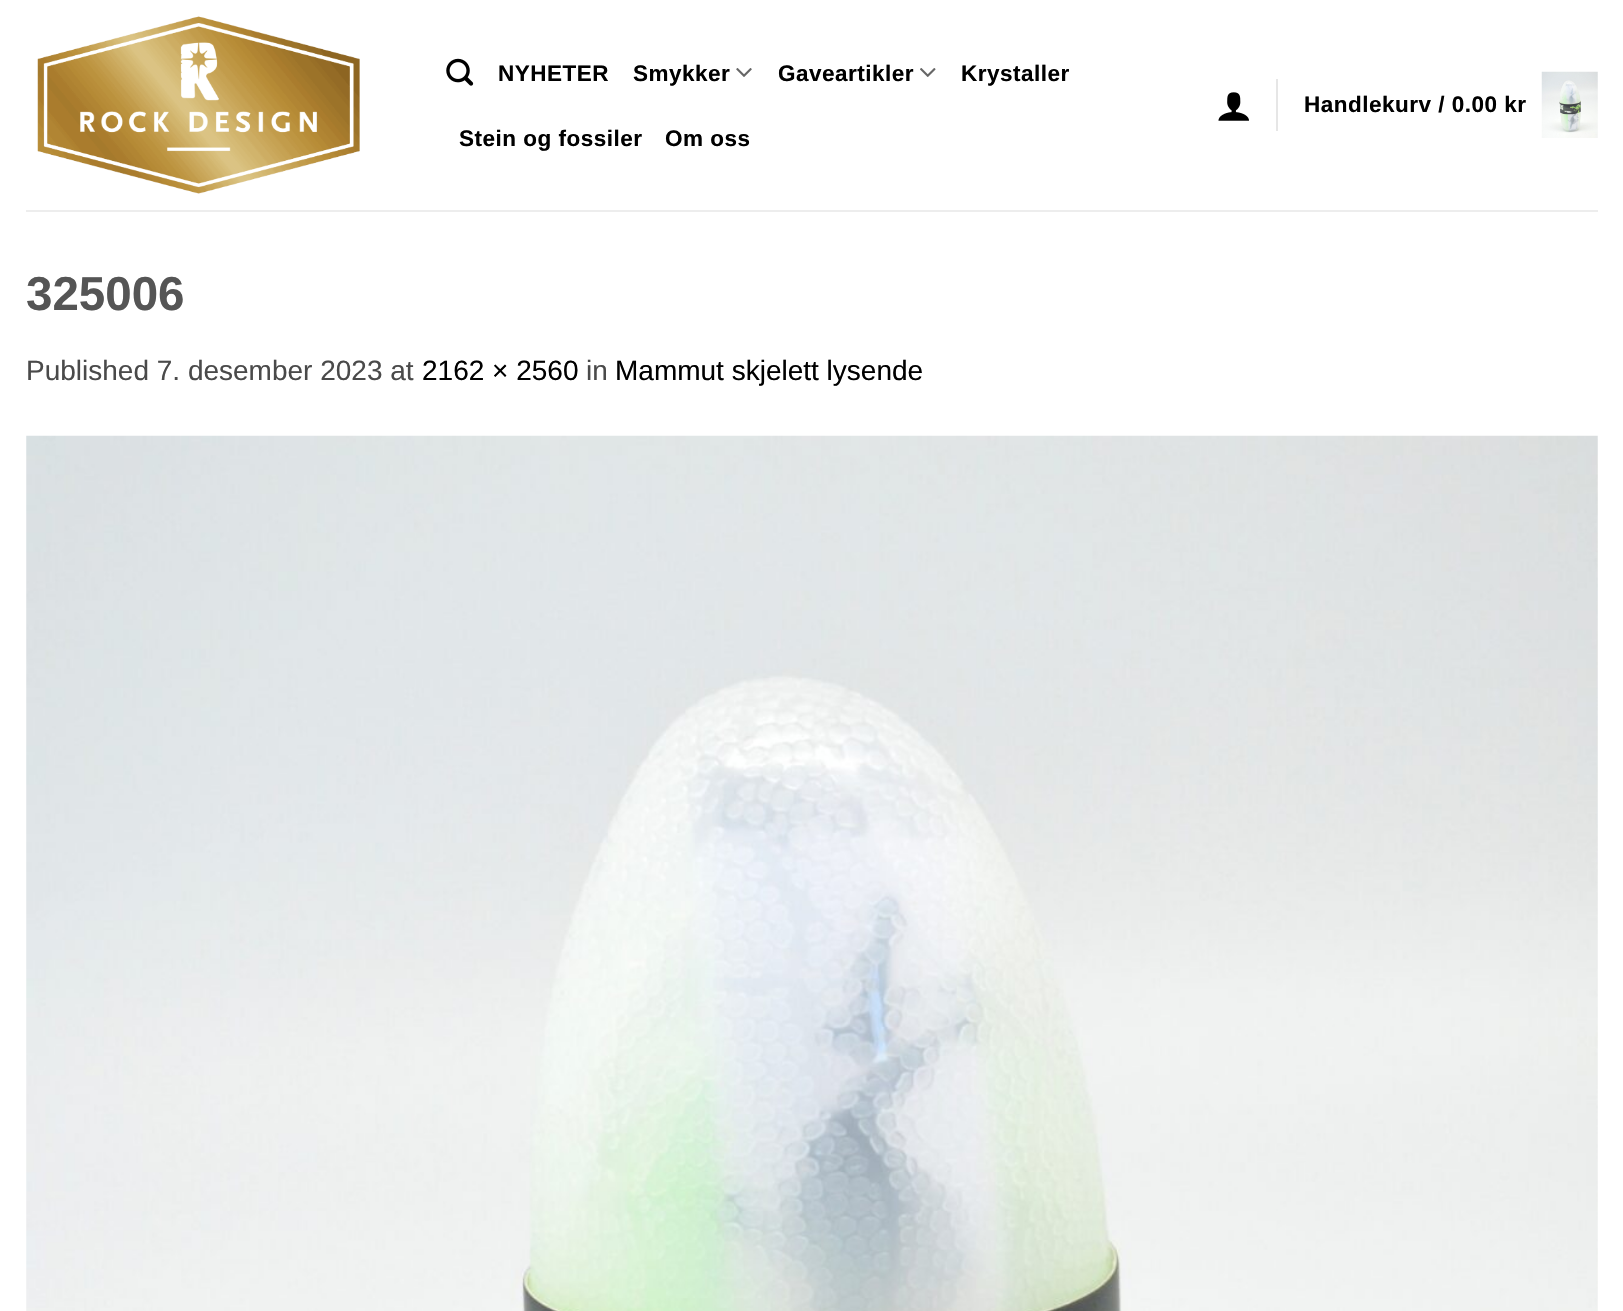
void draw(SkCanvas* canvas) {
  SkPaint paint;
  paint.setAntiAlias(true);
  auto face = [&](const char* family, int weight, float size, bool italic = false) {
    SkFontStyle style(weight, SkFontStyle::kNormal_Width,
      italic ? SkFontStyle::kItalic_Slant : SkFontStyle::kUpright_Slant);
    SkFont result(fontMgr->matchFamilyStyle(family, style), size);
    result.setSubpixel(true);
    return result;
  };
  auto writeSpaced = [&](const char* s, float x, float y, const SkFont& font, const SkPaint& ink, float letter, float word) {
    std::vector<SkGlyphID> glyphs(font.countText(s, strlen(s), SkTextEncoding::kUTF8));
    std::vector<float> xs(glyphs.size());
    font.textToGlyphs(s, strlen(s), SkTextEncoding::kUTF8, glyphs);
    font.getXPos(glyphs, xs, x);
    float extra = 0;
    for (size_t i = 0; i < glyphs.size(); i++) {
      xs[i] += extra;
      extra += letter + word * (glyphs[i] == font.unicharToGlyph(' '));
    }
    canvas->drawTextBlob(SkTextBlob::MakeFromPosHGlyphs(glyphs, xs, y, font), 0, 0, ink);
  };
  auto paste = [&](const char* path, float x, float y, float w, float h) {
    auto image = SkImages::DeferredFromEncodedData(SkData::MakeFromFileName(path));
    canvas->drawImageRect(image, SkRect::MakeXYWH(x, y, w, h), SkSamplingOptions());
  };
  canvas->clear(0xffffffff);
  paste("img/1.png", 37, 16, 323, 178);
  paste("img/2.png", 446, 58, 28, 28);
  paste("img/3.png", 736, 68, 16, 9);
  paste("img/4.png", 920, 68, 16, 9);
  paste("img/5.png", 1218, 92, 31, 29);
  paint.setColor(0xffe6e6e6);
  canvas->drawRect(SkRect::MakeXYWH(1276, 79, 2, 52), paint);
  paste("img/6.png", 1541, 71, 57, 67);
  paint.setColor(0xffededed);
  canvas->drawRect(SkRect::MakeXYWH(26, 210, 1572, 2), paint);
  paste("img/7.png", 26, 435, 1572, 876);
  auto f0 = face("Liberation Sans", 700, 22.5f);
  paint.setColor(0xff000000);
  {
    const struct { const char* s; float x, y; } items[] = {
      {"NYHETER", 498, 81},
      {"Smykker", 633, 81},
      {"Gaveartikler", 778, 81},
      {"Krystaller", 961, 81},
      {"Stein og fossiler", 459, 146},
      {"Om oss", 665, 146},
      {"Handlekurv / 0.00 kr", 1304, 112},
    };
    for (auto [s, x, y] : items) {
      writeSpaced(s, x, y, f0, paint, 0.5f, 0);
    }
  }
  auto f1 = face("Liberation Sans", 700, 47.5f);
  paint.setColor(0xff555555);
  canvas->drawString("325006", 26, 310, f1, paint);
  auto f2 = face("Liberation Sans", 400, 28);
  paint.setColor(0xff4a4a4a);
  canvas->drawString("Published 7. desember 2023 at", 26, 380, f2, paint);
  paint.setColor(0xff000000);
  canvas->drawString("2162 × 2560", 422, 380, f2, paint);
  paint.setColor(0xff4a4a4a);
  canvas->drawString("in", 586, 380, f2, paint);
  paint.setColor(0xff000000);
  canvas->drawString("Mammut skjelett lysende", 615, 380, f2, paint);
}
